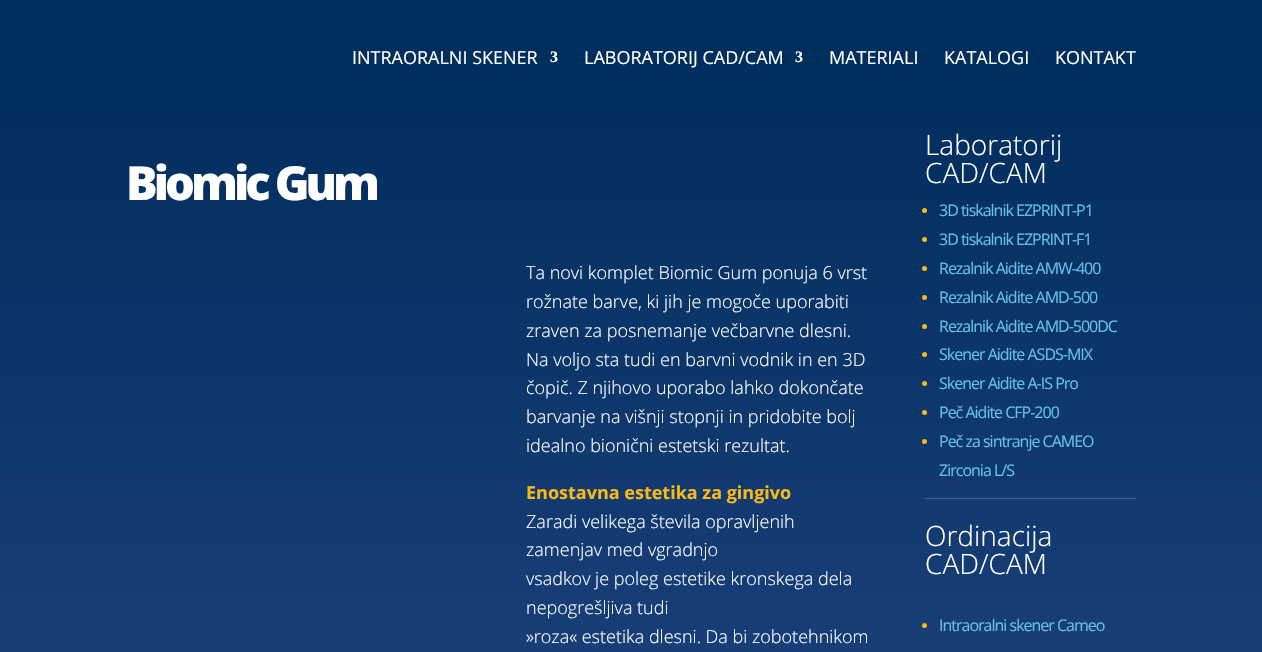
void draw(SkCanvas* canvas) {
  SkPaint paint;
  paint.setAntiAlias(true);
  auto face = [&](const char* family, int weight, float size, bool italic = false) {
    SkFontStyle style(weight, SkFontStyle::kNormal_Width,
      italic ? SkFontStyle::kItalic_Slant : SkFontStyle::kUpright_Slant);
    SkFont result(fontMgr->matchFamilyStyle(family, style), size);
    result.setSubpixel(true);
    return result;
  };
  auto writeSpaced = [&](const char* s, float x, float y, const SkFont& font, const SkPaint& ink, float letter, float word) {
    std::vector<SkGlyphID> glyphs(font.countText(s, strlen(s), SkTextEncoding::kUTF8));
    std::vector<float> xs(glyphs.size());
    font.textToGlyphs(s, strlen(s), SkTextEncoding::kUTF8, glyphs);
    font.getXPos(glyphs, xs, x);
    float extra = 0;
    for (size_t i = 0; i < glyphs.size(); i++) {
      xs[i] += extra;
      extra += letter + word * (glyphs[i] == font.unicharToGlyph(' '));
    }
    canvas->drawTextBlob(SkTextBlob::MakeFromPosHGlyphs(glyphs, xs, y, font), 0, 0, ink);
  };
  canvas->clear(0xffffffff);
  paint.setColor(0xff012a56);
  canvas->drawRect(SkRect::MakeXYWH(0, 114, 1262, 1), paint);
  paint.setColor(0xff002e5d);
  canvas->drawRect(SkRect::MakeXYWH(0, 0, 1262, 114), paint);
  {
    const SkColor colors[] = {0xff002e5d, 0xff445ca7};
    const float stops[] = {0, 1};
    const SkPoint ends[] = {{631, 80}, {631, 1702}};
    paint.setShader(SkGradientShader::MakeLinear(ends, colors, stops, 2, SkTileMode::kClamp));
    paint.setAlpha(255);
  }
  canvas->drawRect(SkRect::MakeXYWH(0, 115, 1262, 537), paint);
  paint.setShader(nullptr);
  paint.setColor(0xfffab916);
  canvas->drawCircle(924.5f, 210.5f, 2.5f, paint);
  canvas->drawCircle(924.5f, 239.5f, 2.5f, paint);
  canvas->drawCircle(924.5f, 268.5f, 2.5f, paint);
  canvas->drawCircle(924.5f, 297.5f, 2.5f, paint);
  canvas->drawCircle(924.5f, 326.5f, 2.5f, paint);
  canvas->drawCircle(924.5f, 354.5f, 2.5f, paint);
  canvas->drawCircle(924.5f, 383.5f, 2.5f, paint);
  canvas->drawCircle(924.5f, 412.5f, 2.5f, paint);
  canvas->drawCircle(924.5f, 441.5f, 2.5f, paint);
  paint.setColor(0xff445ca7);
  canvas->drawRect(SkRect::MakeXYWH(925, 498, 211, 1), paint);
  paint.setColor(0xfffab916);
  canvas->drawCircle(924.5f, 625.5f, 2.5f, paint);
  auto f0 = face("Open Sans", 400, 18);
  paint.setColor(0xffffffff);
  canvas->drawString("INTRAORALNI SKENER", 352, 64, f0, paint);
  auto f1 = face("Liberation Serif", 700, 16);
  canvas->drawString("3", 550, 62, f1, paint);
  canvas->drawString("LABORATORIJ CAD/CAM", 584, 64, f0, paint);
  canvas->drawString("3", 795, 62, f1, paint);
  {
    const struct { const char* s; float x, y; } items[] = {
      {"MATERIALI", 829, 64},
      {"KATALOGI", 944, 64},
      {"KONTAKT", 1055, 64},
    };
    for (auto [s, x, y] : items) {
      canvas->drawString(s, x, y, f0, paint);
    }
  }
  auto f2 = face("Open Sans", 800, 47);
  writeSpaced("Biomic Gum", 126, 200, f2, paint, -4, 0);
  auto f3 = face("Open Sans", 300, 18);
  {
    const struct { const char* s; float x, y; } items[] = {
      {"Ta novi komplet Biomic Gum ponuja 6 vrst", 526, 279},
      {"rožnate barve, ki jih je mogoče uporabiti", 526, 308},
      {"zraven za posnemanje večbarvne dlesni.", 526, 337},
      {"Na voljo sta tudi en barvni vodnik in en 3D", 526, 366},
      {"čopič. Z njihovo uporabo lahko dokončate", 526, 394},
      {"barvanje na višnji stopnji in pridobite bolj", 526, 423},
      {"idealno bionični estetski rezultat.", 526, 452},
    };
    for (auto [s, x, y] : items) {
      canvas->drawString(s, x, y, f3, paint);
    }
  }
  auto f4 = face("Open Sans", 700, 18);
  paint.setColor(0xfffab916);
  canvas->drawString("Enostavna estetika za gingivo", 526, 499, f4, paint);
  paint.setColor(0xffffffff);
  {
    const struct { const char* s; float x, y; } items[] = {
      {"Zaradi velikega števila opravljenih", 526, 528},
      {"zamenjav med vgradnjo", 526, 556},
      {"vsadkov je poleg estetike kronskega dela", 526, 585},
      {"nepogrešljiva tudi", 526, 614},
      {"»roza« estetika dlesni. Da bi zobotehnikom", 526, 643},
    };
    for (auto [s, x, y] : items) {
      canvas->drawString(s, x, y, f3, paint);
    }
  }
  auto f5 = face("Open Sans", 300, 28);
  canvas->drawString("Laboratorij", 925, 155, f5, paint);
  canvas->drawString("CAD/CAM", 925, 183, f5, paint);
  auto f6 = face("Open Sans", 400, 16);
  paint.setColor(0xff63c0e4);
  {
    const struct { const char* s; float x, y; } items[] = {
      {"3D tiskalnik EZPRINT-P1", 939, 216},
      {"3D tiskalnik EZPRINT-F1", 939, 245},
      {"Rezalnik Aidite AMW-400", 939, 274},
      {"Rezalnik Aidite AMD-500", 939, 303},
      {"Rezalnik Aidite AMD-500DC", 939, 332},
      {"Skener Aidite ASDS-MIX", 939, 360},
      {"Skener Aidite A-IS Pro", 939, 389},
      {"Peč Aidite CFP-200", 939, 418},
      {"Peč za sintranje CAMEO", 939, 447},
      {"Zirconia L/S", 939, 476},
    };
    for (auto [s, x, y] : items) {
      writeSpaced(s, x, y, f6, paint, -1, 0);
    }
  }
  paint.setColor(0xffffffff);
  canvas->drawString("Ordinacija", 925, 546, f5, paint);
  canvas->drawString("CAD/CAM", 925, 574, f5, paint);
  paint.setColor(0xff63c0e4);
  writeSpaced("Intraoralni skener Cameo", 939, 631, f6, paint, -1, 0);
}
